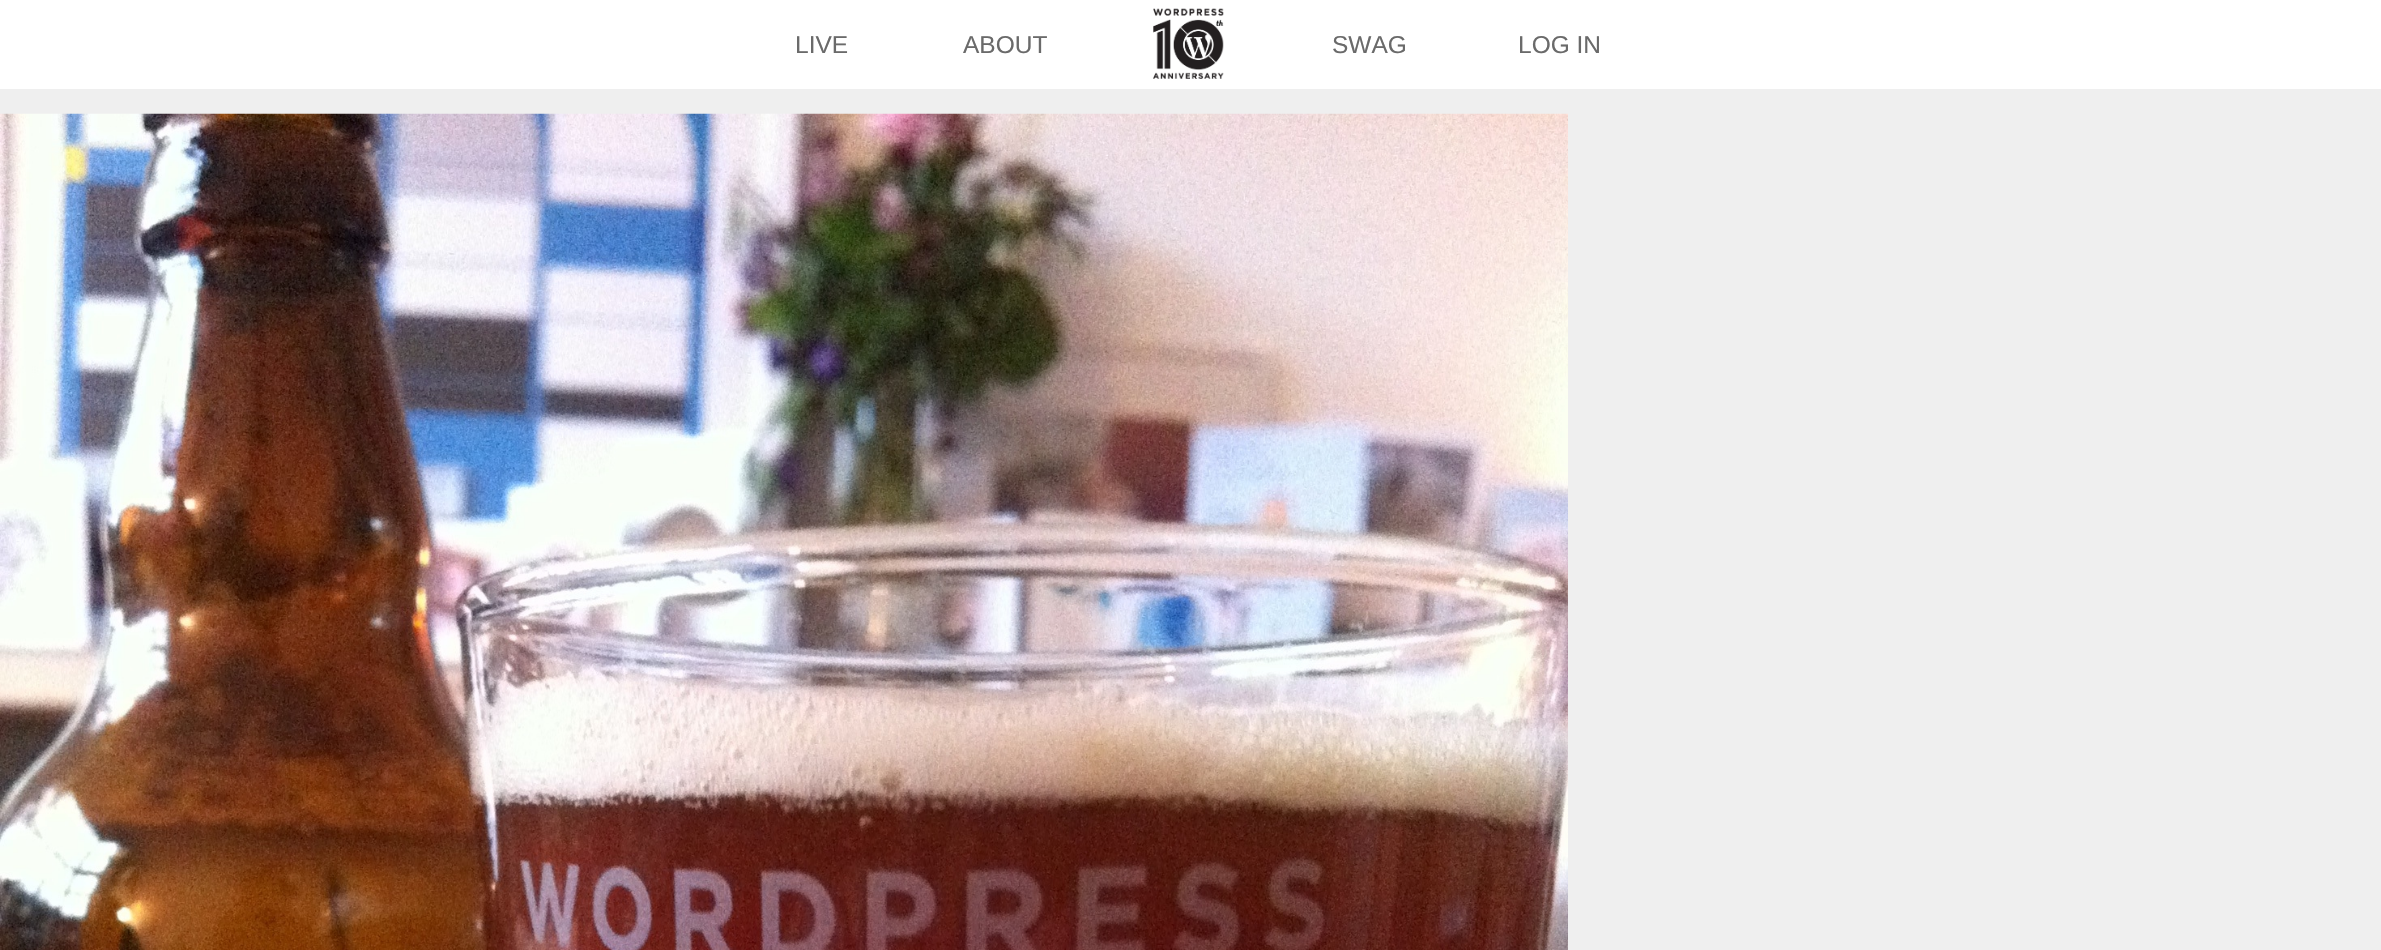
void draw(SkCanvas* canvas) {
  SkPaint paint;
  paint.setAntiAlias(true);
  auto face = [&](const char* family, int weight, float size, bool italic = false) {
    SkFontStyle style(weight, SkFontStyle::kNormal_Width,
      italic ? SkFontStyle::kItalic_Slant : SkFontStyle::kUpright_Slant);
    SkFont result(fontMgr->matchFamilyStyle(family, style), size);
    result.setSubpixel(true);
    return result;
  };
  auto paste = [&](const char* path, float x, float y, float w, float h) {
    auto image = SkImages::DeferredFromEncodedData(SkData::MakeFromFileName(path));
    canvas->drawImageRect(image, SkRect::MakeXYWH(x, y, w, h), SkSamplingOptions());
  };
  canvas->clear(0xffefefef);
  paint.setColor(0xffffffff);
  canvas->drawRect(SkRect::MakeXYWH(0, 0, 2381, 89), paint);
  paste("img/1.png", 1153, 8, 71, 71);
  paste("img/2.png", 0, 113, 1568, 837);
  auto f0 = face("Liberation Sans", 400, 24.5f);
  paint.setColor(0xff6a6a6a);
  {
    const struct { const char* s; float x, y; } items[] = {
      {"LIVE", 795, 53},
      {"ABOUT", 963, 53},
      {"SWAG", 1332, 53},
      {"LOG IN", 1518, 53},
    };
    for (auto [s, x, y] : items) {
      canvas->drawString(s, x, y, f0, paint);
    }
  }
}
